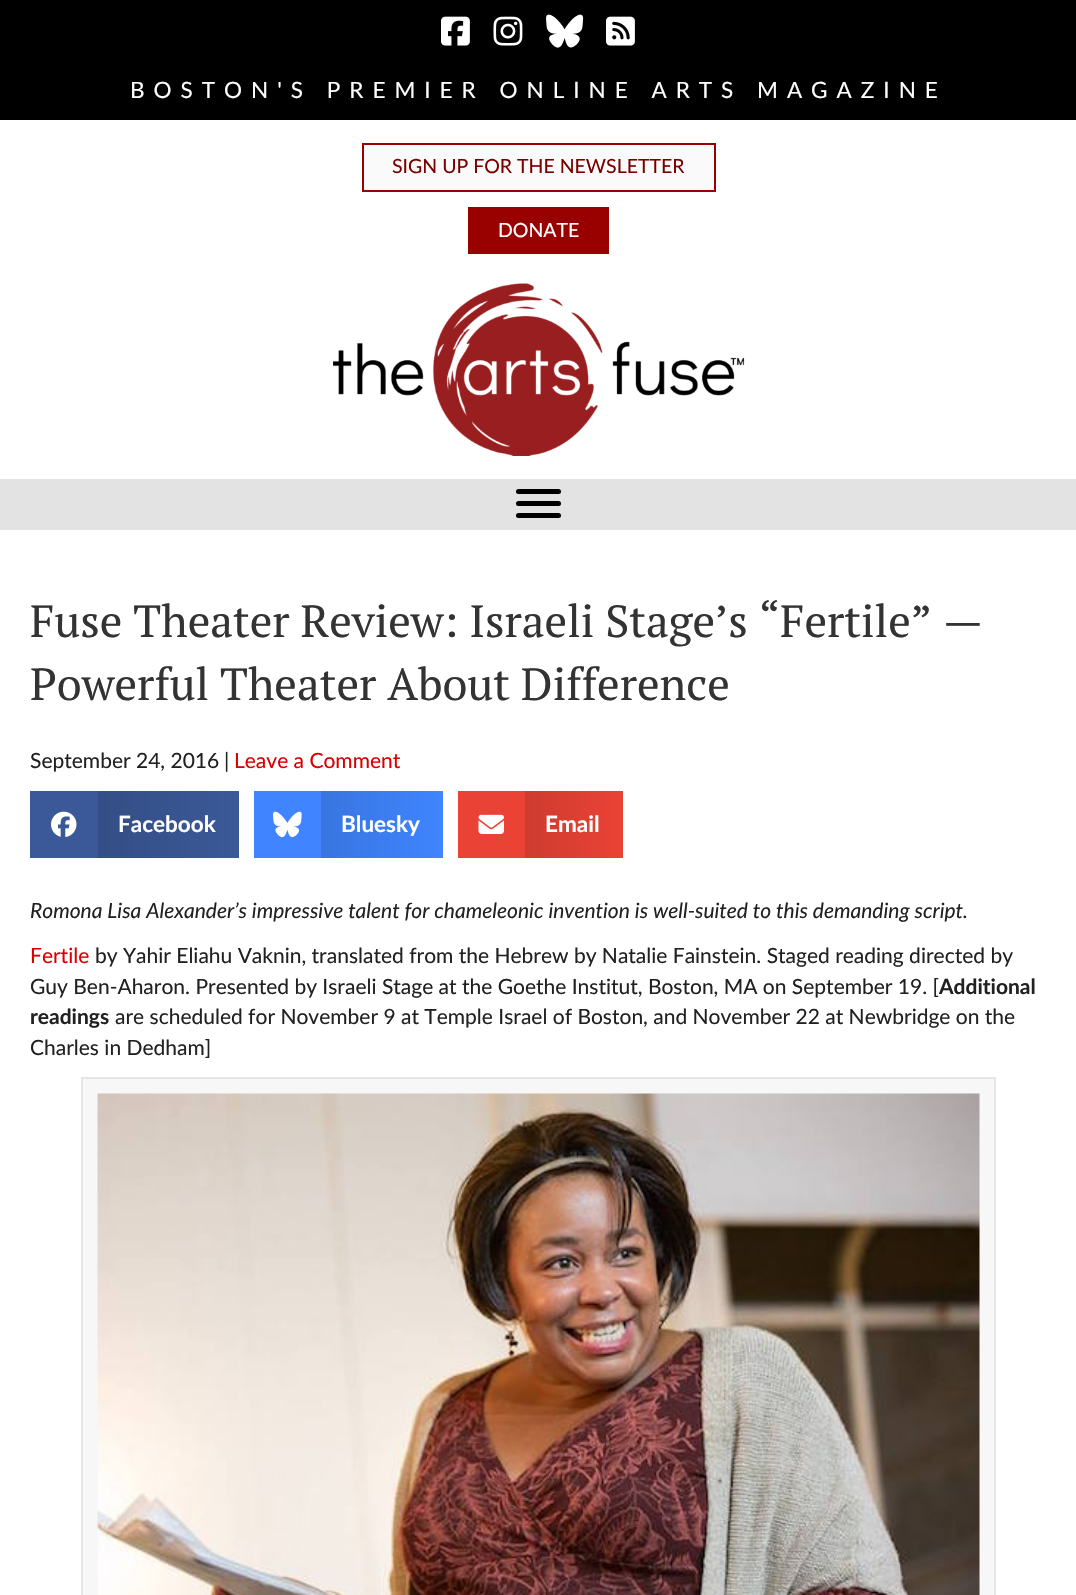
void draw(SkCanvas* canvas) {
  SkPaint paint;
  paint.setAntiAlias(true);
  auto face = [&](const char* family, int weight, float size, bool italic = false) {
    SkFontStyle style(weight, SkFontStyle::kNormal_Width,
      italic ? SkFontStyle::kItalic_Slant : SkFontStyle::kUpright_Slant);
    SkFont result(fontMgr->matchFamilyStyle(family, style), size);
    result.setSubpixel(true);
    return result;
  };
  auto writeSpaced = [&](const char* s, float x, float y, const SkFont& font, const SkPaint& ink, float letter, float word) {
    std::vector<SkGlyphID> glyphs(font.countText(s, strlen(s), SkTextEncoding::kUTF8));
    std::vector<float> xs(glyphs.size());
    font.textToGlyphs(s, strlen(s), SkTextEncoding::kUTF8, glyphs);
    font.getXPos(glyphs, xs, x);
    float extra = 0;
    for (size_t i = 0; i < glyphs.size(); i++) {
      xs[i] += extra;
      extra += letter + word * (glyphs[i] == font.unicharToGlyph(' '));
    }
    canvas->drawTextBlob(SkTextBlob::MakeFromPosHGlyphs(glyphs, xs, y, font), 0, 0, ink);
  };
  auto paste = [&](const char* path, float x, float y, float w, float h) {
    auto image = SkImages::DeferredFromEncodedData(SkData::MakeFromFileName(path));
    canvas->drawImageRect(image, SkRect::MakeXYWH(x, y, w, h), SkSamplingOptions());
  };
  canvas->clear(0xffffffff);
  paint.setColor(0xff000000);
  canvas->drawRect(SkRect::MakeXYWH(0, 0, 1076, 120), paint);
  paste("img/1.png", 441, 16, 29, 30);
  paste("img/2.png", 493, 16, 30, 30);
  paste("img/3.png", 546, 14, 38, 34);
  paste("img/4.png", 606, 16, 29, 30);
  paint.setColor(0xfffafafa);
  canvas->drawRect(SkRect::MakeXYWH(363, 144, 352, 47), paint);
  paint.setStroke(true);
  paint.setStrokeWidth(2);
  paint.setColor(0xff990000);
  canvas->drawRect(SkRect::MakeXYWH(363, 144, 352, 47), paint);
  paint.setStroke(false);
  canvas->drawRect(SkRect::MakeXYWH(468, 207, 141, 47), paint);
  paste("img/5.png", 333, 283, 412, 173);
  paint.setColor(0xffe3e3e3);
  canvas->drawRect(SkRect::MakeXYWH(0, 479, 1076, 51), paint);
  paint.setColor(0xff000000);
  canvas->drawRoundRect(SkRect::MakeXYWH(516, 501, 45, 5), 2.5f, 2.5f, paint);
  canvas->drawRoundRect(SkRect::MakeXYWH(516, 489, 45, 5), 2.5f, 2.5f, paint);
  canvas->drawRoundRect(SkRect::MakeXYWH(516, 513, 45, 5), 2.5f, 2.5f, paint);
  paint.setColor(0xff3b5998);
  canvas->drawRect(SkRect::MakeXYWH(30, 791, 68, 67), paint);
  paste("img/6.png", 51, 811, 26, 26);
  {
    const SkColor colors[] = {0xff344e86, 0xff3b5998};
    const float stops[] = {0, 1};
    const SkPoint ends[] = {{98, 824}, {239, 824}};
    paint.setShader(SkGradientShader::MakeLinear(ends, colors, stops, 2, SkTileMode::kClamp));
    paint.setAlpha(255);
  }
  canvas->drawRect(SkRect::MakeXYWH(98, 791, 141, 67), paint);
  paint.setShader(nullptr);
  paint.setColor(0xff4085ff);
  canvas->drawRect(SkRect::MakeXYWH(254, 791, 67, 67), paint);
  paste("img/7.png", 273, 811, 29, 27);
  {
    const SkColor colors[] = {0xff3875e0, 0xff4085ff};
    const float stops[] = {0, 1};
    const SkPoint ends[] = {{321, 824}, {443, 824}};
    paint.setShader(SkGradientShader::MakeLinear(ends, colors, stops, 2, SkTileMode::kClamp));
    paint.setAlpha(255);
  }
  canvas->drawRect(SkRect::MakeXYWH(321, 791, 122, 67), paint);
  paint.setShader(nullptr);
  paint.setColor(0xffea4335);
  canvas->drawRect(SkRect::MakeXYWH(458, 791, 67, 67), paint);
  paste("img/8.png", 478, 814, 26, 20);
  {
    const SkColor colors[] = {0xffce3b2f, 0xffea4335};
    const float stops[] = {0, 1};
    const SkPoint ends[] = {{525, 824}, {623, 824}};
    paint.setShader(SkGradientShader::MakeLinear(ends, colors, stops, 2, SkTileMode::kClamp));
    paint.setAlpha(255);
  }
  canvas->drawRect(SkRect::MakeXYWH(525, 791, 98, 67), paint);
  paint.setShader(nullptr);
  paint.setColor(0xfff7f7f7);
  canvas->drawRect(SkRect::MakeXYWH(82, 1078, 913, 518), paint);
  paint.setStroke(true);
  paint.setColor(0xffe6e6e6);
  canvas->drawRect(SkRect::MakeXYWH(82, 1078, 913, 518), paint);
  paste("img/9.png", 97, 1093, 883, 502);
  auto f0 = face("Lato", 400, 22.5f);
  paint.setStroke(false);
  paint.setColor(0xffffffff);
  writeSpaced("BOSTON'S PREMIER ONLINE ARTS MAGAZINE", 130, 98, f0, paint, 9, 0);
  auto f1 = face("Lato", 400, 19.5f);
  paint.setColor(0xff7a0000);
  canvas->drawString("SIGN UP FOR THE NEWSLETTER", 392, 173, f1, paint);
  paint.setColor(0xffffffff);
  canvas->drawString("DONATE", 498, 237, f1, paint);
  auto f2 = face("PT Serif", 400, 45);
  paint.setColor(0xff333333);
  canvas->drawString("Fuse Theater Review: Israeli Stage’s “Fertile” —", 30, 637, f2, paint);
  canvas->drawString("Powerful Theater About Difference", 30, 700, f2, paint);
  auto f3 = face("Lato", 400, 21);
  paint.setColor(0xff212121);
  canvas->drawString("September 24, 2016", 30, 768, f3, paint);
  canvas->drawString("|", 224, 768, f3, paint);
  paint.setColor(0xffdb0000);
  canvas->drawString("Leave a Comment", 234, 768, f3, paint);
  auto f4 = face("Lato", 700, 22.5f);
  paint.setColor(0xffffffff);
  {
    const struct { const char* s; float x, y; } items[] = {
      {"Facebook", 118, 832},
      {"Bluesky", 341, 832},
      {"Email", 545, 832},
    };
    for (auto [s, x, y] : items) {
      canvas->drawString(s, x, y, f4, paint);
    }
  }
  auto f5 = face("Lato", 400, 21, true);
  paint.setColor(0xff212121);
  canvas->drawString("Romona Lisa Alexander’s impressive talent for chameleonic invention is well-suited to this demanding script.", 30, 918, f5, paint);
  paint.setColor(0xffdb0000);
  canvas->drawString("Fertile", 30, 963, f3, paint);
  paint.setColor(0xff212121);
  canvas->drawString("by Yahir Eliahu Vaknin, translated from the Hebrew by Natalie Fainstein. Staged reading directed by", 95, 963, f3, paint);
  canvas->drawString("Guy Ben-Aharon. Presented by Israeli Stage at the Goethe Institut, Boston, MA on September 19. [", 30, 994, f3, paint);
  auto f6 = face("Lato", 700, 21);
  canvas->drawString("Additional", 939, 994, f6, paint);
  canvas->drawString("readings", 30, 1024, f6, paint);
  canvas->drawString("are scheduled for November 9 at Temple Israel of Boston, and November 22 at Newbridge on the", 115, 1024, f3, paint);
  canvas->drawString("Charles in Dedham]", 30, 1055, f3, paint);
}
